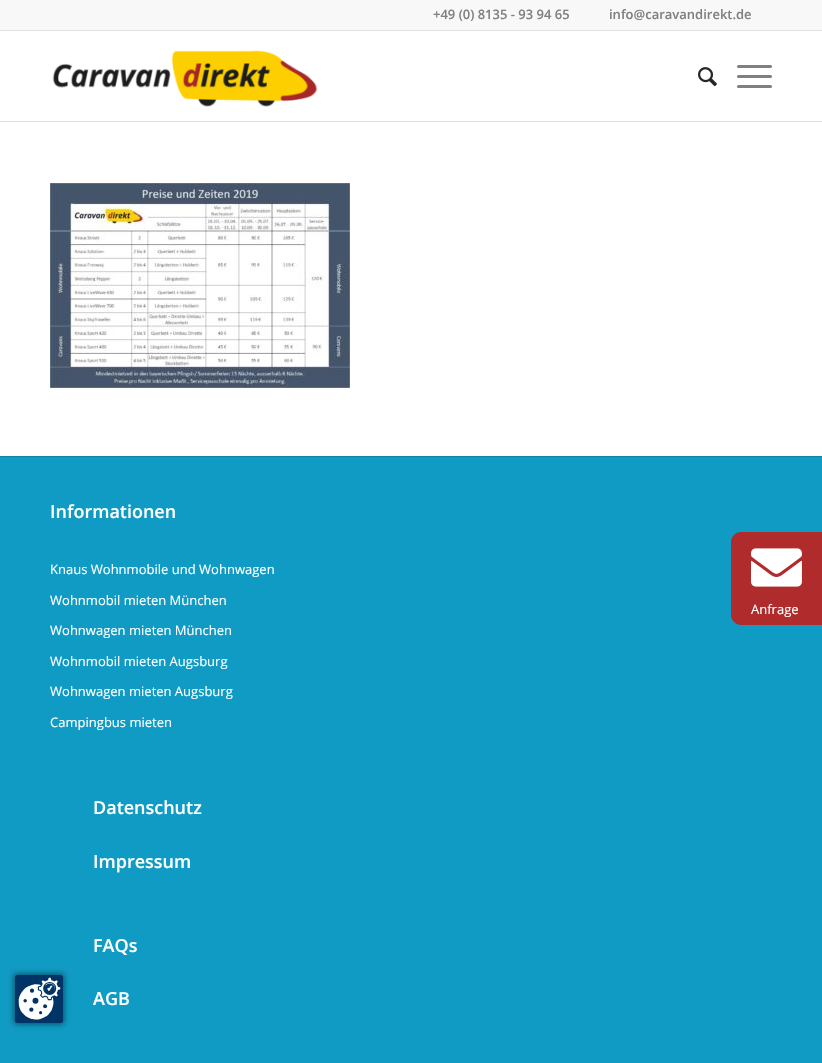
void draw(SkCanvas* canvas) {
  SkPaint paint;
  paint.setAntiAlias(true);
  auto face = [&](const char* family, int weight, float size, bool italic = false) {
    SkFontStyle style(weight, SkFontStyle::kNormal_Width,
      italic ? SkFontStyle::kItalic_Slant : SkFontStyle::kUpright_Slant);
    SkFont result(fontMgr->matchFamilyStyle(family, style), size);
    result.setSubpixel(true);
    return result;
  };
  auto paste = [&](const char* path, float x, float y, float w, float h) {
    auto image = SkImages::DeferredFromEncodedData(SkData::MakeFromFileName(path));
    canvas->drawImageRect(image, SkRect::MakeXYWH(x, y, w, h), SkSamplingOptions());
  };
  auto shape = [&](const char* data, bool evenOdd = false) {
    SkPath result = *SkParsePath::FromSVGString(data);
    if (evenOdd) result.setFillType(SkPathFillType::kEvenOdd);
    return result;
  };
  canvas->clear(0xffffffff);
  paint.setColor(0xff109bc5);
  canvas->drawRect(SkRect::MakeXYWH(0, 457, 822, 606), paint);
  paint.setColor(0x80000000);
  paint.setMaskFilter(SkMaskFilter::MakeBlur(kNormal_SkBlurStyle, 3));
  canvas->drawRect(SkRect::MakeXYWH(14, 974, 50, 50), paint);
  paint.setMaskFilter(nullptr);
  paste("img/1.png", 15, 975, 48, 48);
  {
    const struct { float x, y, w, h; SkColor color; } items[] = {
      {0, 0, 822, 30, 0xfff8f8f8},
      {0, 30, 822, 1, 0xffe1e1e1},
      {0, 121, 822, 1, 0xffe1e1e1},
    };
    for (auto [x, y, w, h, color] : items) {
      paint.setColor(color);
      canvas->drawRect(SkRect::MakeXYWH(x, y, w, h), paint);
    }
  }
  paste("img/2.png", 52, 50, 266, 57);
  paste("img/3.png", 698, 67, 19, 20);
  paint.setColor(0xff808080);
  canvas->drawRoundRect(SkRect::MakeXYWH(737, 75, 35, 3), 1.5f, 1.5f, paint);
  canvas->drawRoundRect(SkRect::MakeXYWH(737, 65, 35, 3), 1.5f, 1.5f, paint);
  canvas->drawRoundRect(SkRect::MakeXYWH(737, 85, 35, 3), 1.5f, 1.5f, paint);
  paste("img/4.png", 50, 183, 300, 205);
  paint.setColor(0xff0f81a1);
  canvas->drawRect(SkRect::MakeXYWH(0, 456, 822, 1), paint);
  paint.setColor(0xffb02b2c);
  canvas->drawPath(shape("M741 532H822V625H741C735.5 625 731 620.5 731 615V542C731 536.5 735.5 532 741 532Z"), paint);
  paste("img/5.png", 751, 548, 51, 39);
  auto f0 = face("Open Sans", 600, 13);
  paint.setColor(0xff808080);
  canvas->drawString("+49 (0) 8135 - 93 94 65", 433, 19, f0, paint);
  canvas->drawString("info@caravandirekt.de", 609, 19, f0, paint);
  auto f1 = face("Open Sans", 600, 18);
  paint.setColor(0xffffffff);
  canvas->drawString("Informationen", 50, 518, f1, paint);
  auto f2 = face("Open Sans", 400, 13);
  {
    const struct { const char* s; float x, y; } items[] = {
      {"Knaus Wohnmobile und Wohnwagen", 50, 574},
      {"Wohnmobil mieten München", 50, 605},
      {"Wohnwagen mieten München", 50, 635},
      {"Wohnmobil mieten Augsburg", 50, 666},
      {"Wohnwagen mieten Augsburg", 50, 696},
      {"Campingbus mieten", 50, 727},
    };
    for (auto [s, x, y] : items) {
      canvas->drawString(s, x, y, f2, paint);
    }
  }
  {
    const struct { const char* s; float x, y; } items[] = {
      {"Datenschutz", 93, 814},
      {"Impressum", 93, 868},
      {"FAQs", 93, 952},
      {"AGB", 93, 1005},
    };
    for (auto [s, x, y] : items) {
      canvas->drawString(s, x, y, f1, paint);
    }
  }
  canvas->drawString("Anfrage", 751, 614, f2, paint);
}
